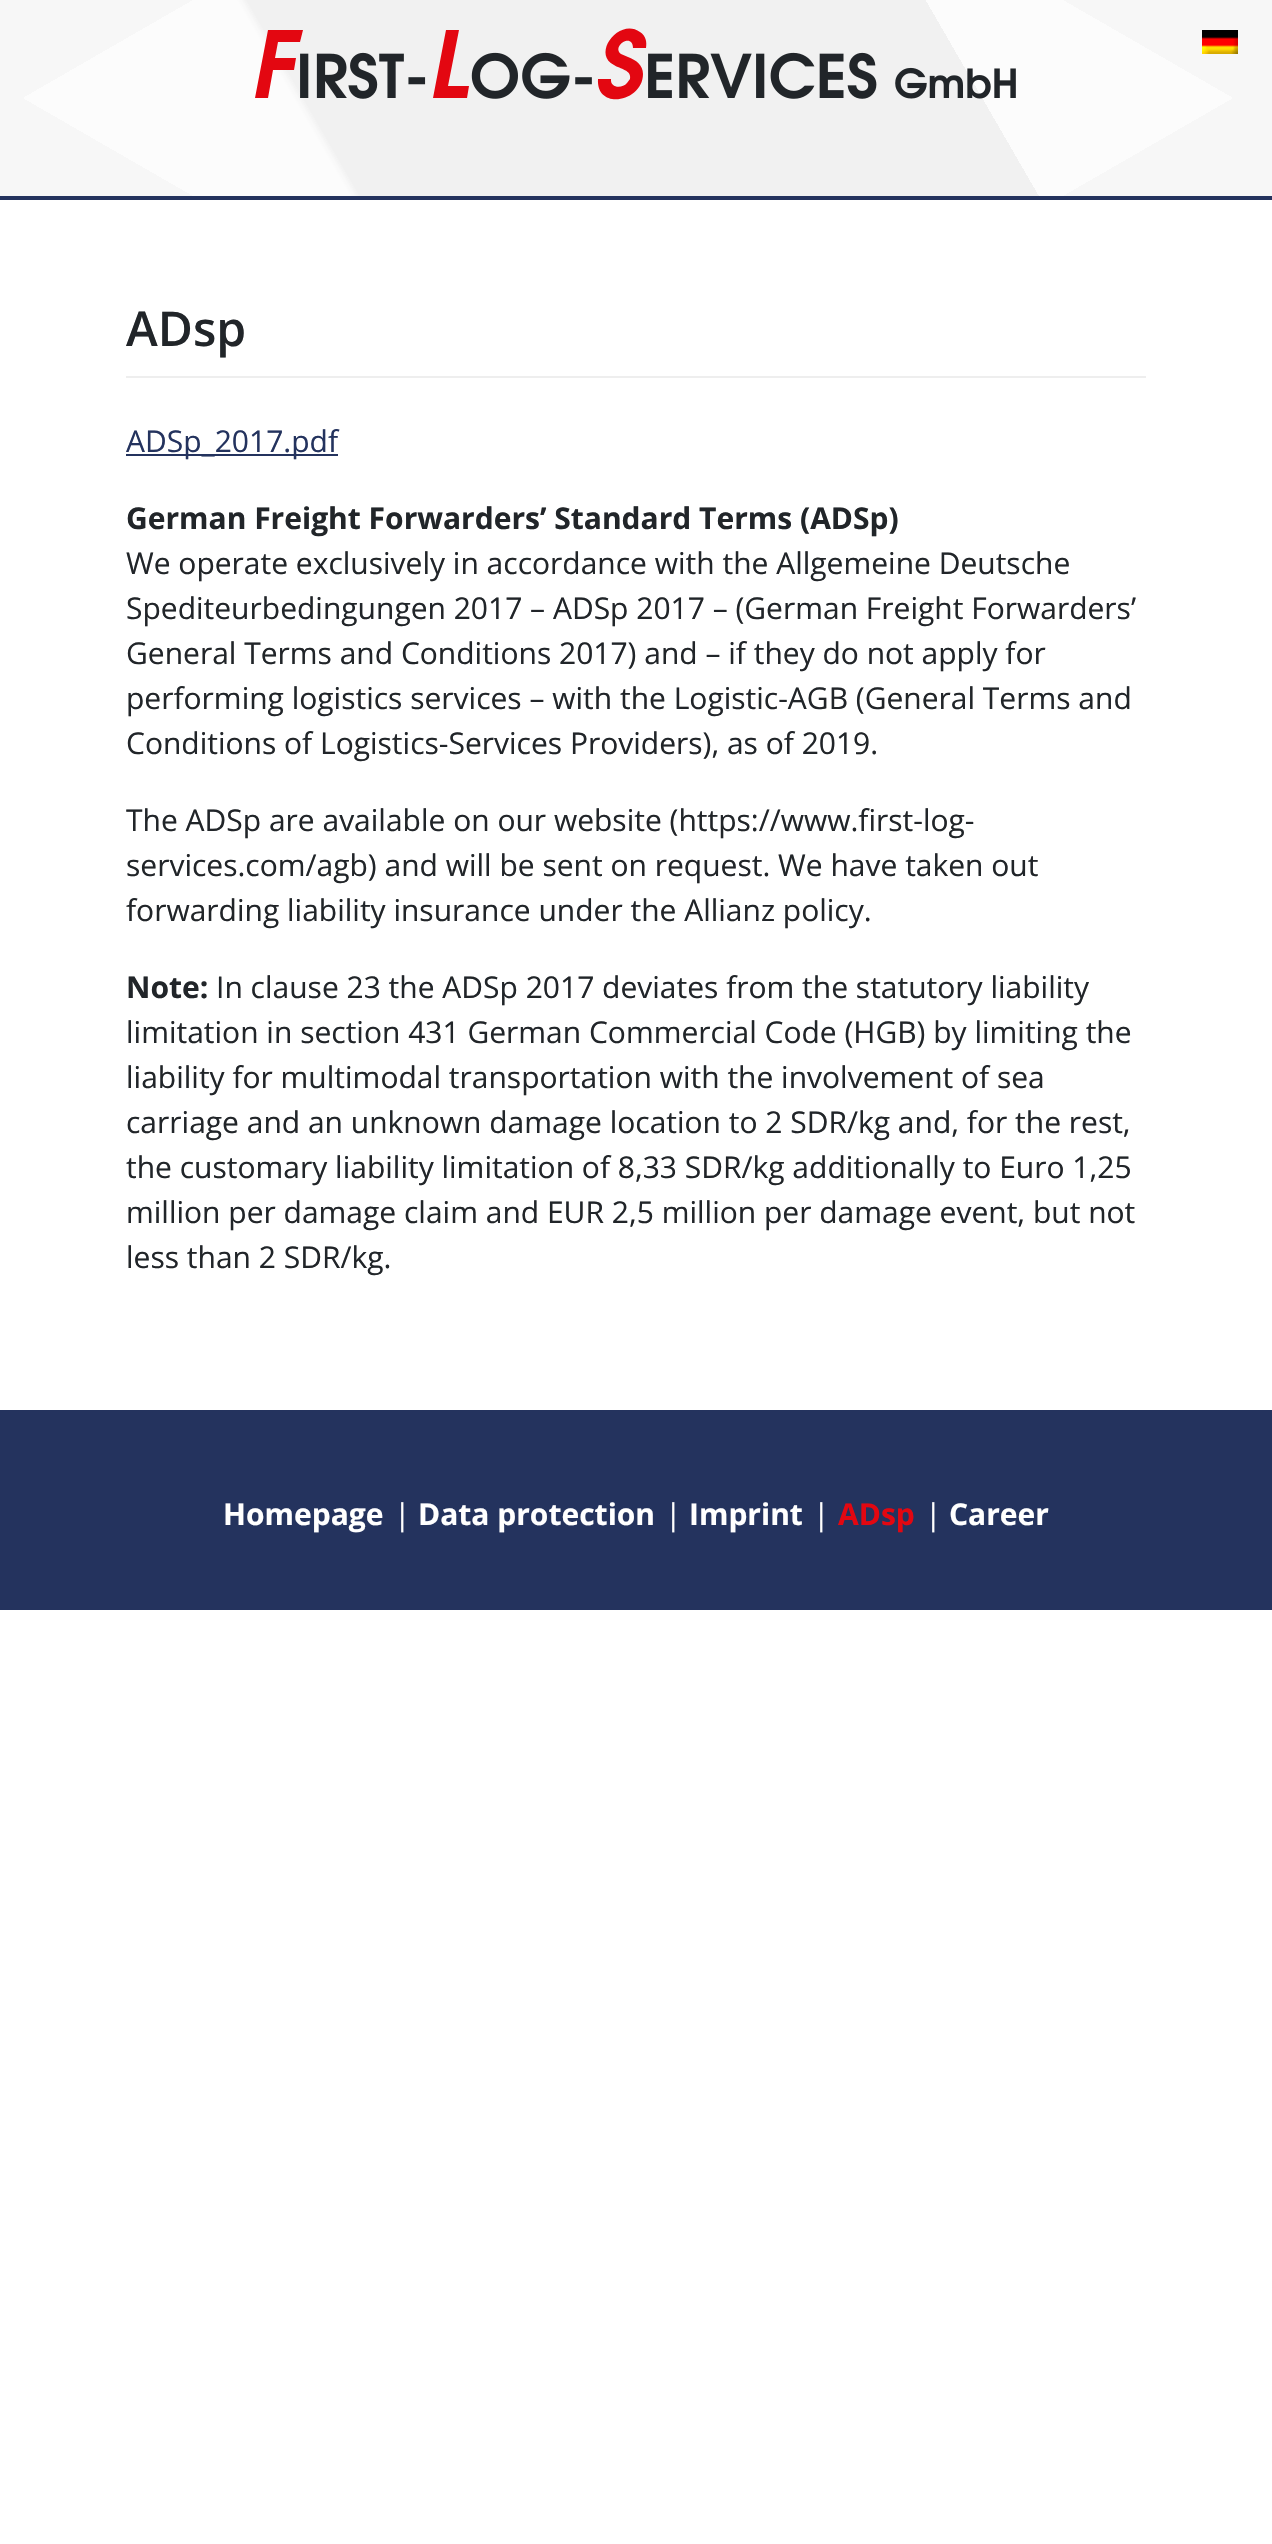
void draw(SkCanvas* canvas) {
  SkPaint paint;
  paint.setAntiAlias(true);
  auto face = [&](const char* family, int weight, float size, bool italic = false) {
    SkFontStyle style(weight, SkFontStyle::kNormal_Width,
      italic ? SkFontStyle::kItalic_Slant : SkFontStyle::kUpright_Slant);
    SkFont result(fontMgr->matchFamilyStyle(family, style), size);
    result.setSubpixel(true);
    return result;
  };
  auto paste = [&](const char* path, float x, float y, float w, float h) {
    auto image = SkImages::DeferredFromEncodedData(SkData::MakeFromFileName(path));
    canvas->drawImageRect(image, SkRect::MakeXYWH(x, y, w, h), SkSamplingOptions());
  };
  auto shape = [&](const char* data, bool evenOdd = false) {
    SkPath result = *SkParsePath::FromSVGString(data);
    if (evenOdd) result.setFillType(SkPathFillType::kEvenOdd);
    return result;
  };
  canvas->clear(0xffffffff);
  {
    const SkColor colors[] = {0xfffcfcfc, 0xfff1f1f1, 0xfff1f1f1, 0xfffcfcfc, 0xfffcfcfc};
    const float stops[] = {0.25f, 0.26f, 0.75f, 0.75f, 1};
    const SkPoint ends[] = {{117, 398}, {1155, -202}};
    paint.setShader(SkGradientShader::MakeLinear(ends, colors, stops, 5, SkTileMode::kClamp));
    paint.setAlpha(255);
  }
  canvas->drawRect(SkRect::MakeXYWH(234, 0, 805, 196), paint);
  {
    const SkColor colors[] = {0xfffcfcfc, 0x00fcfcfc, 0x00fcfcfc, 0xfffcfcfc, 0xfffcfcfc};
    const float stops[] = {0.25f, 0.26f, 0.75f, 0.75f, 1};
    const SkPoint ends[] = {{117, 398}, {1155, -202}};
    paint.setShader(SkGradientShader::MakeLinear(ends, colors, stops, 5, SkTileMode::kClamp));
    paint.setAlpha(255);
  }
  canvas->drawRect(SkRect::MakeXYWH(24, 0, 1208, 196), paint);
  {
    const SkColor colors[] = {0xfff7f7f7, 0x00f7f7f7, 0x00f7f7f7, 0xfff7f7f7, 0xfff7f7f7};
    const float stops[] = {0.12f, 0.12f, 0.87f, 0.87f, 1};
    const SkPoint ends[] = {{435, -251}, {837, 447}};
    paint.setShader(SkGradientShader::MakeLinear(ends, colors, stops, 5, SkTileMode::kClamp));
    paint.setAlpha(255);
  }
  canvas->drawRect(SkRect::MakeXYWH(0, 0, 1272, 196), paint);
  {
    const SkColor colors[] = {0xfff7f7f7, 0x00f7f7f7, 0x00f7f7f7, 0xfff7f7f7, 0xfff7f7f7};
    const float stops[] = {0.12f, 0.12f, 0.87f, 0.87f, 1};
    const SkPoint ends[] = {{435, 447}, {837, -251}};
    paint.setShader(SkGradientShader::MakeLinear(ends, colors, stops, 5, SkTileMode::kClamp));
    paint.setAlpha(255);
  }
  canvas->drawRect(SkRect::MakeXYWH(0, 0, 1272, 196), paint);
  paint.setShader(nullptr);
  paint.setColor(0xff24335e);
  canvas->drawRect(SkRect::MakeXYWH(0, 196, 1272, 4), paint);
  paint.setColor(0xffe30711);
  canvas->drawPath(shape("M300 42H278L275 58H296L294 70H273L268 98H255L268 30H303Z"), paint);
  paste("img/1.png", 300, 52, 126, 47);
  canvas->drawPath(shape("M467 98H433L446 30H459L448 86H469Z"), paint);
  paste("img/2.png", 471, 52, 121, 47);
  canvas->drawPath(shape("M643 74C643 102 596 111 598 79H611C610 88 622 89 627 83L630 79C632 70 620 69 614 65C591 53 620 17 640 32C646 36 647 42 646 48H633C633 32 611 46 621 54L628 57C636 60 643 65 643 74Z"), paint);
  paste("img/3.png", 648, 52, 229, 47);
  paste("img/4.png", 895, 67, 121, 32);
  paste("img/5.png", 1202, 30, 36, 24);
  {
    const struct { float x, y, w, h; SkColor color; } items[] = {
      {126, 376, 1020, 2, 0xffeeeeee},
      {126, 454, 212, 2, 0xff24335e},
      {0, 1410, 1272, 200, 0xff24335e},
    };
    for (auto [x, y, w, h, color] : items) {
      paint.setColor(color);
      canvas->drawRect(SkRect::MakeXYWH(x, y, w, h), paint);
    }
  }
  auto f0 = face("Open Sans", 600, 48);
  paint.setColor(0xff212529);
  canvas->drawString("ADsp", 126, 346, f0, paint);
  auto f1 = face("Open Sans", 400, 30);
  paint.setColor(0xff24335e);
  canvas->drawString("ADSp_2017.pdf", 126, 452, f1, paint);
  auto f2 = face("Open Sans", 700, 30);
  paint.setColor(0xff212529);
  canvas->drawString("German Freight Forwarders’ Standard Terms (ADSp)", 126, 529, f2, paint);
  {
    const struct { const char* s; float x, y; } items[] = {
      {"We operate exclusively in accordance with the Allgemeine Deutsche", 126, 574},
      {"Spediteurbedingungen 2017 – ADSp 2017 – (German Freight Forwarders’", 126, 619},
      {"General Terms and Conditions 2017) and – if they do not apply for", 126, 664},
      {"performing logistics services – with the Logistic-AGB (General Terms and", 126, 709},
      {"Conditions of Logistics-Services Providers), as of 2019.", 126, 754},
      {"The ADSp are available on our website (https://www.first-log-", 126, 831},
      {"services.com/agb) and will be sent on request. We have taken out", 126, 876},
      {"forwarding liability insurance under the Allianz policy.", 126, 921},
    };
    for (auto [s, x, y] : items) {
      canvas->drawString(s, x, y, f1, paint);
    }
  }
  canvas->drawString("Note:", 126, 998, f2, paint);
  {
    const struct { const char* s; float x, y; } items[] = {
      {"In clause 23 the ADSp 2017 deviates from the statutory liability", 216, 998},
      {"limitation in section 431 German Commercial Code (HGB) by limiting the", 126, 1043},
      {"liability for multimodal transportation with the involvement of sea", 126, 1088},
      {"carriage and an unknown damage location to 2 SDR/kg and, for the rest,", 126, 1133},
      {"the customary liability limitation of 8,33 SDR/kg additionally to Euro 1,25", 126, 1178},
      {"million per damage claim and EUR 2,5 million per damage event, but not", 126, 1223},
      {"less than 2 SDR/kg.", 126, 1268},
    };
    for (auto [s, x, y] : items) {
      canvas->drawString(s, x, y, f1, paint);
    }
  }
  paint.setColor(0xffffffff);
  canvas->drawString("Homepage", 223, 1525, f2, paint);
  canvas->drawString("|", 394, 1525, f1, paint);
  canvas->drawString("Data protection", 418, 1525, f2, paint);
  canvas->drawString("|", 665, 1525, f1, paint);
  canvas->drawString("Imprint", 689, 1525, f2, paint);
  canvas->drawString("|", 813, 1525, f1, paint);
  paint.setColor(0xffe30711);
  canvas->drawString("ADsp", 838, 1525, f2, paint);
  paint.setColor(0xffffffff);
  canvas->drawString("|", 925, 1525, f1, paint);
  canvas->drawString("Career", 949, 1525, f2, paint);
}
